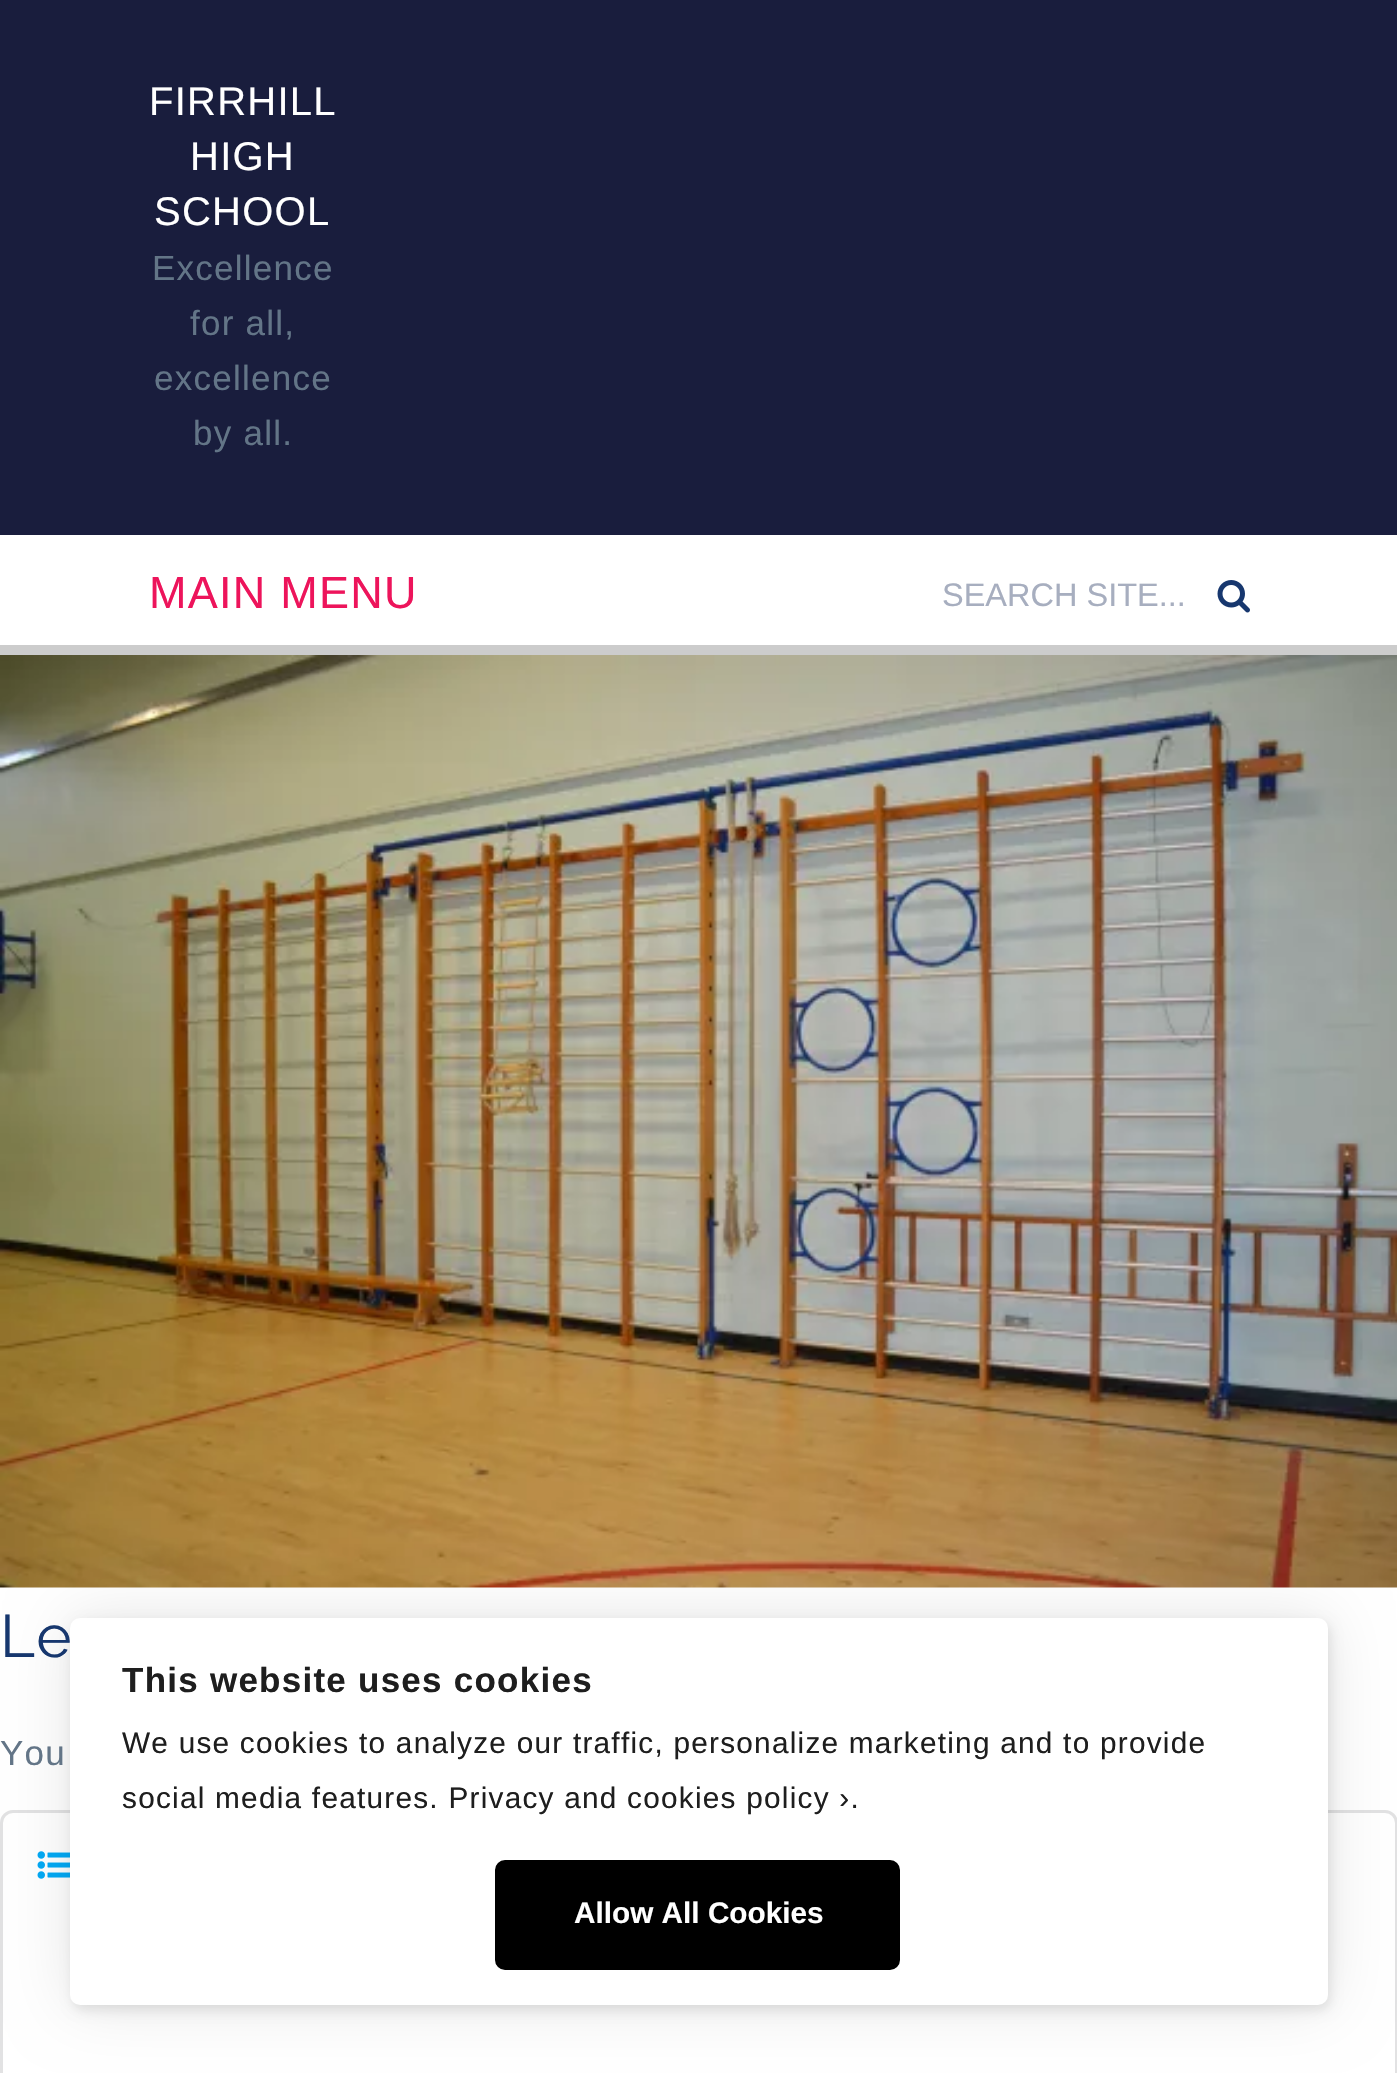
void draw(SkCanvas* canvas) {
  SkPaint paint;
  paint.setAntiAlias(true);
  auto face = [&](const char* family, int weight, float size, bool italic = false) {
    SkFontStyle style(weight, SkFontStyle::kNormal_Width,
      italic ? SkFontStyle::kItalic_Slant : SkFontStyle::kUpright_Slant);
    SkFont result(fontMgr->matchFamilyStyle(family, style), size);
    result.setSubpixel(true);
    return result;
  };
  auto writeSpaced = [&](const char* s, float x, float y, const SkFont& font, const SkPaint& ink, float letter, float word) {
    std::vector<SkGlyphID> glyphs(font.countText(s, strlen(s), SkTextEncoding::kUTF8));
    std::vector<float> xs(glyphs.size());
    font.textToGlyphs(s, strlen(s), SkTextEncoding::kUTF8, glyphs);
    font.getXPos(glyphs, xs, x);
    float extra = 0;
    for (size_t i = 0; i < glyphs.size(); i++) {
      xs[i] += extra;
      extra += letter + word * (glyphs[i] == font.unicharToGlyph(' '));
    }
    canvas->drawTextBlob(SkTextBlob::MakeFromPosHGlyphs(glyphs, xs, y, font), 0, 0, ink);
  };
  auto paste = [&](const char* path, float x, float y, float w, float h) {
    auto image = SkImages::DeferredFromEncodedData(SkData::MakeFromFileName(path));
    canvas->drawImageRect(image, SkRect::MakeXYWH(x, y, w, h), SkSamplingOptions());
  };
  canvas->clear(0xffffffff);
  paint.setColor(0xff191d3d);
  canvas->drawRect(SkRect::MakeXYWH(0, 0, 1397, 535), paint);
  paint.setColor(0xffcccccc);
  canvas->drawRect(SkRect::MakeXYWH(0, 645, 1397, 10), paint);
  paste("img/1.png", 1217, 580, 33, 33);
  paste("img/2.png", 0, 655, 1397, 933);
  paint.setStroke(true);
  paint.setStrokeWidth(3);
  paint.setColor(0xffe2e2e3);
  canvas->drawRoundRect(SkRect::MakeXYWH(1.5f, 1811.5f, 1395, 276), 11.5f, 11.5f, paint);
  paste("img/3.png", 37, 1851, 33, 28);
  paint.setStroke(false);
  paint.setColor(0x1a000000);
  paint.setMaskFilter(SkMaskFilter::MakeBlur(kNormal_SkBlurStyle, 6));
  canvas->drawRoundRect(SkRect::MakeXYWH(73, 1623, 1257, 387), 10, 10, paint);
  paint.setMaskFilter(nullptr);
  paint.setMaskFilter(SkMaskFilter::MakeBlur(kNormal_SkBlurStyle, 31));
  canvas->drawRoundRect(SkRect::MakeXYWH(70, 1618, 1258, 387), 10, 10, paint);
  paint.setMaskFilter(nullptr);
  paint.setColor(0xffffffff);
  canvas->drawRoundRect(SkRect::MakeXYWH(70, 1618, 1258, 387), 10, 10, paint);
  paint.setColor(0xff000000);
  canvas->drawRoundRect(SkRect::MakeXYWH(496.5f, 1861.5f, 402, 107), 8.5f, 8.5f, paint);
  paint.setStroke(true);
  canvas->drawRoundRect(SkRect::MakeXYWH(496.5f, 1861.5f, 402, 107), 8.5f, 8.5f, paint);
  auto f0 = face("Liberation Sans", 400, 40);
  paint.setStroke(false);
  paint.setColor(0xffffffff);
  {
    const struct { const char* s; float x, y; } items[] = {
      {"FIRRHILL", 149, 115},
      {"HIGH", 190, 170},
      {"SCHOOL", 154, 225},
    };
    for (auto [s, x, y] : items) {
      writeSpaced(s, x, y, f0, paint, 1.25f, 0);
    }
  }
  auto f1 = face("Liberation Sans", 400, 35);
  paint.setColor(0xff637587);
  {
    const struct { const char* s; float x, y; } items[] = {
      {"Excellence", 152, 280},
      {"for all,", 190, 335},
      {"excellence", 154, 390},
      {"by all.", 193, 445},
    };
    for (auto [s, x, y] : items) {
      writeSpaced(s, x, y, f1, paint, 1.25f, 0);
    }
  }
  auto f2 = face("Liberation Sans", 400, 45);
  paint.setColor(0xffed145b);
  writeSpaced("MAIN MENU", 149, 608, f2, paint, 1.25f, 0);
  auto f3 = face("Liberation Sans", 400, 32.5f);
  paint.setColor(0xffa7aebf);
  canvas->drawString("SEARCH SITE...", 942, 606, f3, paint);
  auto f4 = face("Raleway", 400, 60);
  paint.setColor(0xff17376e);
  writeSpaced("Le", 0, 1657, f4, paint, 1.25f, 0);
  paint.setColor(0xff637587);
  writeSpaced("You", 0, 1765, f1, paint, 1.25f, 0);
  auto f5 = face("Liberation Sans", 700, 35);
  paint.setColor(0xff1e1e1e);
  writeSpaced("This website uses cookies", 122, 1692, f5, paint, 1.25f, 0);
  auto f6 = face("Liberation Sans", 400, 29.75f);
  writeSpaced("We use cookies to analyze our traffic, personalize marketing and to provide", 122, 1753, f6, paint, 1.25f, 0);
  writeSpaced("social media features. Privacy and cookies policy ›.", 122, 1808, f6, paint, 1.25f, 0);
  auto f7 = face("Liberation Sans", 700, 29.75f);
  paint.setColor(0xffffffff);
  canvas->drawString("Allow All Cookies", 574, 1923, f7, paint);
}
